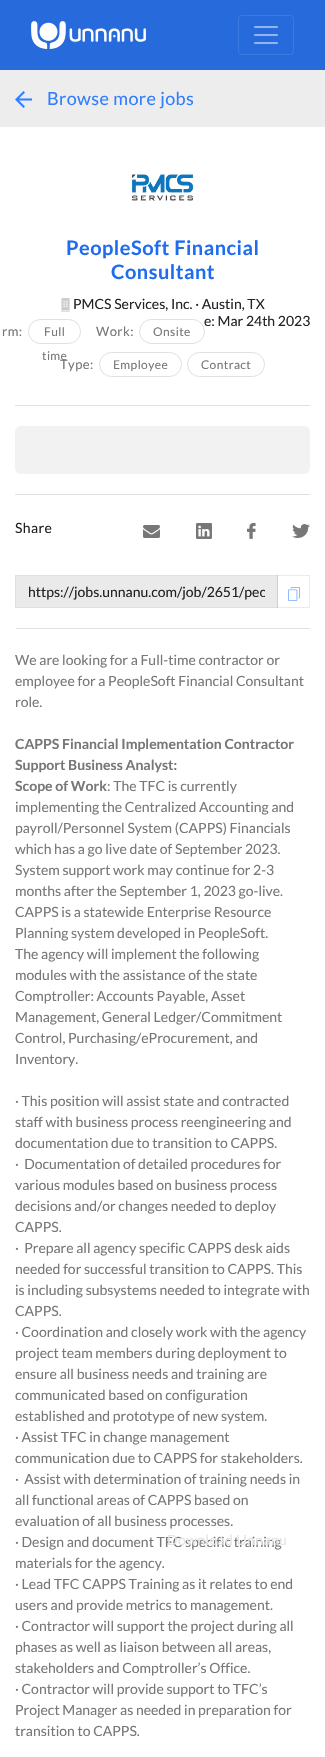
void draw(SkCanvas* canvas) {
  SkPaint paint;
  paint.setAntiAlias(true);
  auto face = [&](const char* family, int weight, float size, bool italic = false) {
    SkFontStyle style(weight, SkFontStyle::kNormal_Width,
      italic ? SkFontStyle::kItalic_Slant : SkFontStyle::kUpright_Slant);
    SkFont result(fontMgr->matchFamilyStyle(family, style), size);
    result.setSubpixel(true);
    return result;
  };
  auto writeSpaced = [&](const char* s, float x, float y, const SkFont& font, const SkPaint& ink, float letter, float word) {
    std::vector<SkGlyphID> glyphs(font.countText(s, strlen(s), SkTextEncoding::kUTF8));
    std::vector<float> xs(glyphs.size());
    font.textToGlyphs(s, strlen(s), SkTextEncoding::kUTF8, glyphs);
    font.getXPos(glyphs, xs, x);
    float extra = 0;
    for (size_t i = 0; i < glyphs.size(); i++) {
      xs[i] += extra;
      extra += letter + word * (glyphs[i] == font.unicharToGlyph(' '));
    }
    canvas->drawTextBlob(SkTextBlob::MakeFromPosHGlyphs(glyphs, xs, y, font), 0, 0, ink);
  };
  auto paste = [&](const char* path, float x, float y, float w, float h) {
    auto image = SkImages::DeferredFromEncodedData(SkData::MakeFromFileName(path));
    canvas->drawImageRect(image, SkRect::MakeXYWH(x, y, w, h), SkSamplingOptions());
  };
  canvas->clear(0xffededed);
  paint.setColor(0xff266adc);
  canvas->drawRect(SkRect::MakeXYWH(0, 0, 325, 70), paint);
  paste("img/1.png", 31, 21, 115, 28);
  paint.setStroke(true);
  paint.setStrokeWidth(1);
  paint.setColor(0xff3c79e0);
  canvas->drawRoundRect(SkRect::MakeXYWH(238.5f, 15.5f, 55, 39), 3.5f, 3.5f, paint);
  paste("img/2.png", 254, 26, 24, 18);
  paste("img/3.png", 15, 91, 17, 17);
  paint.setStroke(false);
  paint.setColor(0xffffffff);
  canvas->drawRect(SkRect::MakeXYWH(0, 127, 325, 1630), paint);
  paint.setColor(0xffe0e0e0);
  canvas->drawRect(SkRect::MakeXYWH(15, 405, 295, 1), paint);
  paste("img/4.png", 131, 174, 63, 27);
  paste("img/5.png", 61, 298, 9, 14);
  paint.setStroke(true);
  canvas->drawRoundRect(SkRect::MakeXYWH(28.5f, 319.5f, 52, 24), 12, 12, paint);
  canvas->drawRoundRect(SkRect::MakeXYWH(99.5f, 352.5f, 82, 24), 12, 12, paint);
  canvas->drawRoundRect(SkRect::MakeXYWH(187.5f, 352.5f, 77, 24), 12, 12, paint);
  paint.setStroke(false);
  paint.setColor(0xfff2f2f2);
  canvas->drawRoundRect(SkRect::MakeXYWH(15, 426, 295, 48), 6, 6, paint);
  paint.setColor(0xffe0e0e0);
  canvas->drawRect(SkRect::MakeXYWH(15, 494, 295, 1), paint);
  paste("img/6.png", 143, 525, 17, 13);
  paste("img/7.png", 196, 523, 16, 16);
  paste("img/8.png", 247, 523, 9, 16);
  paste("img/9.png", 292, 524, 18, 14);
  canvas->drawRect(SkRect::MakeXYWH(16, 628, 294, 1), paint);
  paint.setColor(0xffeaeaea);
  canvas->drawRect(SkRect::MakeXYWH(15.5f, 575.5f, 262, 32), paint);
  paint.setStroke(true);
  paint.setColor(0xffe0e0e0);
  canvas->drawRect(SkRect::MakeXYWH(15.5f, 575.5f, 262, 32), paint);
  paint.setColor(0x14000000);
  canvas->drawRect(SkRect::MakeXYWH(277.5f, 575.5f, 32, 32), paint);
  paste("img/10.png", 288, 587, 12, 14);
  auto f0 = face("Lato", 400, 18);
  paint.setStroke(false);
  paint.setColor(0xff317eff);
  writeSpaced("Browse more jobs", 47, 105, f0, paint, 0.4f, 0);
  auto f1 = face("Lato", 700, 20);
  paint.setColor(0xff1f6cf0);
  writeSpaced("PeopleSoft Financial", 66, 255, f1, paint, 0.5f, 0);
  writeSpaced("Consultant", 111, 279, f1, paint, 0.5f, 0);
  auto f2 = face("Lato", 400, 14);
  paint.setColor(0xff212529);
  canvas->drawString("PMCS Services, Inc. · Austin, TX", 73, 309, f2, paint);
  canvas->drawString("e: Mar 24th 2023", 204, 326, f2, paint);
  auto f3 = face("Lato", 400, 13);
  paint.setColor(0xff777777);
  writeSpaced("rm:", 2, 336, f3, paint, 0.4f, 0);
  auto f4 = face("Lato", 400, 12);
  writeSpaced("Full", 44, 336, f4, paint, 0.4f, 0);
  writeSpaced("time", 42, 360, f4, paint, 0.4f, 0);
  writeSpaced("Work:", 96, 336, f3, paint, 0.4f, 0);
  paint.setStroke(true);
  paint.setColor(0x1f000000);
  canvas->drawRoundRect(SkRect::MakeXYWH(139.5f, 319.5f, 65, 24), 12, 12, paint);
  paint.setStroke(false);
  paint.setColor(0xff777777);
  writeSpaced("Onsite", 153, 336, f4, paint, 0.4f, 0);
  writeSpaced("Type:", 60, 369, f3, paint, 0.4f, 0);
  writeSpaced("Employee", 113, 369, f4, paint, 0.4f, 0);
  writeSpaced("Contract", 201, 369, f4, paint, 0.4f, 0);
  paint.setColor(0xff222222);
  writeSpaced("Share", 15, 533, f2, paint, 0.4f, 0);
  canvas->save();
  canvas->clipRect(SkRect::MakeXYWH(28, 583, 237, 17));
  canvas->drawString("https://jobs.unnanu.com/job/2651/peo", 28, 597, f2, paint);
  canvas->restore();
  paint.setColor(0xff777777);
  {
    const struct { const char* s; float x, y; } items[] = {
      {"We are looking for a Full-time contractor or", 15, 665},
      {"employee for a PeopleSoft Financial Consultant", 15, 686},
      {"role.", 15, 707},
    };
    for (auto [s, x, y] : items) {
      canvas->drawString(s, x, y, f2, paint);
    }
  }
  auto f5 = face("Lato", 700, 14);
  {
    const struct { const char* s; float x, y; } items[] = {
      {"CAPPS Financial Implementation Contractor", 15, 749},
      {"Support Business Analyst:", 15, 770},
      {"Scope of Work", 15, 791},
    };
    for (auto [s, x, y] : items) {
      canvas->drawString(s, x, y, f5, paint);
    }
  }
  {
    const struct { const char* s; float x, y; } items[] = {
      {": The TFC is currently", 107, 791},
      {"implementing the Centralized Accounting and", 15, 812},
      {"payroll/Personnel System (CAPPS) Financials", 15, 833},
      {"which has a go live date of September 2023.", 15, 854},
      {"System support work may continue for 2-3", 15, 875},
      {"months after the September 1, 2023 go-live.", 15, 896},
      {"CAPPS is a statewide Enterprise Resource", 15, 917},
      {"Planning system developed in PeopleSoft.", 15, 938},
      {"The agency will implement the following", 15, 959},
      {"modules with the assistance of the state", 15, 980},
      {"Comptroller: Accounts Payable, Asset", 15, 1001},
      {"Management, General Ledger/Commitment", 15, 1022},
      {"Control, Purchasing/eProcurement, and", 15, 1043},
      {"Inventory.", 15, 1064},
      {"· This position will assist state and contracted", 15, 1106},
      {"staff with business process reengineering and", 15, 1127},
      {"documentation due to transition to CAPPS.", 15, 1148},
      {"·  Documentation of detailed procedures for", 15, 1169},
      {"various modules based on business process", 15, 1190},
      {"decisions and/or changes needed to deploy", 15, 1211},
      {"CAPPS.", 15, 1232},
      {"·  Prepare all agency specific CAPPS desk aids", 15, 1253},
      {"needed for successful transition to CAPPS. This", 15, 1274},
      {"is including subsystems needed to integrate with", 15, 1295},
      {"CAPPS.", 15, 1316},
      {"· Coordination and closely work with the agency", 15, 1337},
      {"project team members during deployment to", 15, 1358},
      {"ensure all business needs and training are", 15, 1379},
      {"communicated based on configuration", 15, 1400},
      {"established and prototype of new system.", 15, 1421},
      {"· Assist TFC in change management", 15, 1442},
      {"communication due to CAPPS for stakeholders.", 15, 1463},
      {"·  Assist with determination of training needs in", 15, 1484},
      {"all functional areas of CAPPS based on", 15, 1505},
      {"evaluation of all business processes.", 15, 1526},
      {"· Design and document TFC specific training", 15, 1547},
      {"materials for the agency.", 15, 1568},
      {"· Lead TFC CAPPS Training as it relates to end", 15, 1589},
      {"users and provide metrics to management.", 15, 1610},
      {"· Contractor will support the project during all", 15, 1631},
      {"phases as well as liaison between all areas,", 15, 1652},
      {"stakeholders and Comptroller’s Office.", 15, 1673},
      {"· Contractor will provide support to TFC’s", 15, 1694},
      {"Project Manager as needed in preparation for", 15, 1715},
      {"transition to CAPPS.", 15, 1736},
    };
    for (auto [s, x, y] : items) {
      canvas->drawString(s, x, y, f2, paint);
    }
  }
  paint.setColor(0xffe5e5e5);
  writeSpaced("Download Unnanu", 167, 1545, f2, paint, 0.4f, 0);
}
